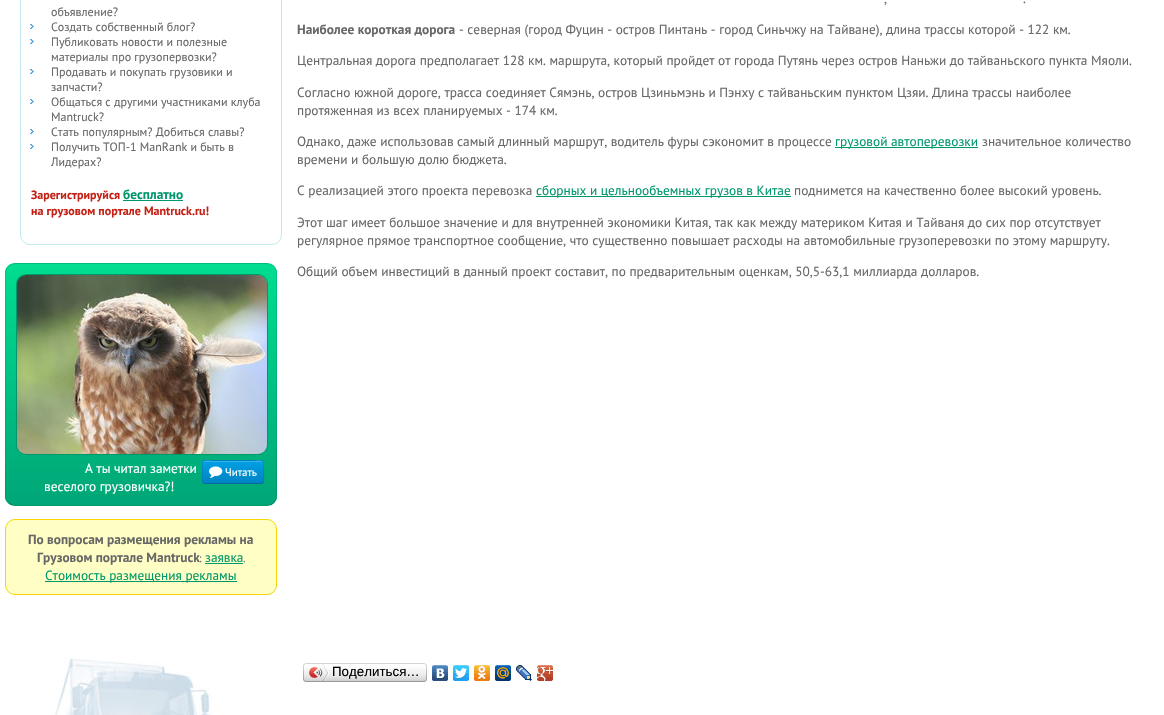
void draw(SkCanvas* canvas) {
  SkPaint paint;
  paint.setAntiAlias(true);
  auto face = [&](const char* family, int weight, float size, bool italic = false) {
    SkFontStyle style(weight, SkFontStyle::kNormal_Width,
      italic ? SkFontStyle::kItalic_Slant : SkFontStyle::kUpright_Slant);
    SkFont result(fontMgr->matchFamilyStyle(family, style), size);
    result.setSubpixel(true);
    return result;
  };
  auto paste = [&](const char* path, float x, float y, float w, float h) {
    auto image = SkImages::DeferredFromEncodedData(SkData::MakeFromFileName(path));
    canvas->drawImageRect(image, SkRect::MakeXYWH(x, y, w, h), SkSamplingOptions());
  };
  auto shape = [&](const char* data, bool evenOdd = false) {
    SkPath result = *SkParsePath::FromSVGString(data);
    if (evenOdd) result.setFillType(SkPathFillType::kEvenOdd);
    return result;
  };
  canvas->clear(0xffffffff);
  paint.setStroke(true);
  paint.setStrokeWidth(1);
  paint.setColor(0xffc2e7ec);
  canvas->drawRoundRect(SkRect::MakeXYWH(20.5f, -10.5f, 261, 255), 9.5f, 9.5f, paint);
  paste("img/1.png", 30, 24, 4, 5);
  paste("img/1.png", 30, 39, 4, 5);
  paste("img/1.png", 30, 69, 4, 5);
  paste("img/1.png", 30, 99, 4, 5);
  paste("img/1.png", 30, 129, 4, 5);
  paste("img/1.png", 30, 144, 4, 5);
  paint.setStroke(false);
  paint.setColor(0xff00976c);
  canvas->drawRect(SkRect::MakeXYWH(123, 200, 60, 1), paint);
  paint.setColor(0xff00d087);
  canvas->drawRoundRect(SkRect::MakeXYWH(5, 263, 272, 243), 10, 10, paint);
  canvas->save();
  canvas->clipPath(shape("M15 263H267C272.5 263 277 267.5 277 273V496C277 501.5 272.5 506 267 506H15C9.5 506 5 501.5 5 496V273C5 267.5 9.5 263 15 263Z"), true);
  {
    const SkColor colors[] = {0xff00dd90, 0xff00a677};
    const float stops[] = {0, 1};
    const SkPoint ends[] = {{141, 264}, {141, 505}};
    paint.setShader(SkGradientShader::MakeLinear(ends, colors, stops, 2, SkTileMode::kClamp));
    paint.setAlpha(255);
  }
  canvas->drawRect(SkRect::MakeXYWH(5, 264, 272, 241), paint);
  canvas->restore();
  paint.setStroke(true);
  paint.setShader(nullptr);
  paint.setColor(0x40000000);
  canvas->drawPath(shape("M273.5 502.5C272 504.5 269.5 505.5 267 505.5H15C12.5 505.5 10 504.5 8.5 502.5"), paint);
  paint.setColor(0x1a000000);
  canvas->drawPath(shape("M8.5 502.5C6.5 501 5.5 498.5 5.5 496V273C5.5 270.5 6.5 268 8.5 266.5C10 264.5 12.5 263.5 15 263.5H267C269.5 263.5 272 264.5 273.5 266.5C275.5 268 276.5 270.5 276.5 273V496C276.5 498.5 275.5 501 273.5 502.5"), paint);
  paint.setColor(0xff00976c);
  canvas->drawRoundRect(SkRect::MakeXYWH(16.5f, 274.5f, 251, 180), 9.5f, 9.5f, paint);
  paste("img/2.png", 17, 275, 250, 179);
  paint.setStroke(false);
  paint.setColor(0xff008ed0);
  canvas->drawRoundRect(SkRect::MakeXYWH(202, 460, 62, 24), 3, 3, paint);
  canvas->save();
  canvas->clipPath(shape("M205 460H261C262.5 460 264 461.5 264 463V481C264 482.5 262.5 484 261 484H205C203.5 484 202 482.5 202 481V463C202 461.5 203.5 460 205 460Z"), true);
  {
    const SkColor colors[] = {0xff00a0e4, 0xff0083c4};
    const float stops[] = {0, 1};
    const SkPoint ends[] = {{233, 461}, {233, 483}};
    paint.setShader(SkGradientShader::MakeLinear(ends, colors, stops, 2, SkTileMode::kClamp));
    paint.setAlpha(255);
  }
  canvas->drawRect(SkRect::MakeXYWH(202, 461, 62, 22), paint);
  canvas->restore();
  paint.setShader(nullptr);
  paint.setColor(0x33ffffff);
  canvas->drawPath(shape("M205 462H261C262 462 263 463 263 464C263 458 255 461 252 461H214C211 461 203 458 203 464C203 463 204 462 205 462Z"), paint);
  paint.setStroke(true);
  paint.setColor(0x40000000);
  canvas->drawPath(shape("M263 483L261 483.5H205L203 483"), paint);
  paint.setColor(0x1a000000);
  canvas->drawPath(shape("M203 483C201.5 481 202.5 474 202.5 472C202.5 458.5 200.5 460.5 214.5 460.5H251.5C265.5 460.5 263.5 458.5 263.5 472C263.5 474 264.5 481 263 483"), paint);
  paste("img/3.png", 209, 466, 14, 12);
  paint.setStroke(false);
  paint.setColor(0xfffffec4);
  canvas->drawRoundRect(SkRect::MakeXYWH(5.5f, 519.5f, 271, 75), 9.5f, 9.5f, paint);
  paint.setStroke(true);
  paint.setColor(0xfff6d700);
  canvas->drawRoundRect(SkRect::MakeXYWH(5.5f, 519.5f, 271, 75), 9.5f, 9.5f, paint);
  paint.setStroke(false);
  paint.setColor(0xff00976c);
  canvas->drawRect(SkRect::MakeXYWH(205, 563, 38, 1), paint);
  canvas->drawRect(SkRect::MakeXYWH(45, 581, 192, 1), paint);
  paste("img/4.png", 53, 656, 160, 59);
  canvas->drawRect(SkRect::MakeXYWH(835, 147, 143, 1), paint);
  canvas->drawRect(SkRect::MakeXYWH(536, 196, 255, 1), paint);
  paste("img/5.png", 306, 663, 118, 19);
  paste("img/6.png", 303, 663, 3, 19);
  paste("img/7.png", 309, 664, 20, 17);
  paste("img/8.png", 424, 663, 3, 19);
  paste("img/9.png", 432, 665, 16, 16);
  paste("img/10.png", 453, 665, 16, 16);
  paste("img/11.png", 474, 665, 16, 16);
  paste("img/12.png", 495, 665, 16, 16);
  paste("img/13.png", 516, 665, 16, 16);
  paste("img/14.png", 537, 665, 16, 16);
  auto f0 = face("PT Sans", 400, 12);
  paint.setColor(0xff676767);
  {
    const struct { const char* s; float x, y; } items[] = {
      {"объявление?", 51, 16},
      {"Создать собственный блог?", 51, 31},
      {"Публиковать новости и полезные", 51, 46},
      {"материалы про грузопервозки?", 51, 61},
      {"Продавать и покупать грузовики и", 51, 76},
      {"запчасти?", 51, 91},
      {"Общаться с другими участниками клуба", 51, 106},
      {"Mantruck?", 51, 121},
      {"Стать популярным? Добиться славы?", 51, 136},
      {"Получить ТОП-1 ManRank и быть в", 51, 151},
      {"Лидерах?", 51, 166},
    };
    for (auto [s, x, y] : items) {
      canvas->drawString(s, x, y, f0, paint);
    }
  }
  auto f1 = face("PT Sans", 700, 12);
  paint.setColor(0xffc42015);
  canvas->drawString("Зарегистрируйся", 31, 199, f1, paint);
  auto f2 = face("PT Sans", 700, 13.33f);
  paint.setColor(0xff00976c);
  canvas->drawString("бесплатно", 123, 199, f2, paint);
  paint.setColor(0xffc42015);
  canvas->drawString("на грузовом портале Mantruck.ru!", 31, 215, f1, paint);
  auto f3 = face("PT Sans", 400, 13.33f);
  paint.setColor(0xffffffff);
  canvas->drawString("А ты читал заметки", 85, 473, f3, paint);
  auto f4 = face("PT Sans", 400, 11);
  canvas->drawString("Читать", 225, 476, f4, paint);
  canvas->drawString("веселого грузовичка?!", 44, 491, f3, paint);
  paint.setColor(0xff676767);
  canvas->drawString("По вопросам размещения рекламы на", 28, 544, f2, paint);
  canvas->drawString("Грузовом портале Mantruck", 37, 562, f2, paint);
  canvas->drawString(":", 199, 562, f4, paint);
  paint.setColor(0xff00976c);
  canvas->drawString("заявка", 205, 562, f3, paint);
  paint.setColor(0xff676767);
  canvas->drawString(".", 243, 562, f4, paint);
  paint.setColor(0xff00976c);
  canvas->drawString("Стоимость размещения рекламы", 45, 580, f3, paint);
  paint.setColor(0xff676767);
  canvas->drawString(",", 884, 3, f3, paint);
  canvas->drawString(".", 1023, 3, f3, paint);
  canvas->drawString("Наиболее короткая дорога", 297, 34, f2, paint);
  {
    const struct { const char* s; float x, y; } items[] = {
      {"- северная (город Фуцин - остров Пинтань - город Синьчжу на Тайване), длина трассы которой - 122 км.", 459, 34},
      {"Центральная дорога предполагает 128 км. маршрута, который пройдет от города Путянь через остров Наньжи до тайваньского пункта Мяоли.", 297, 65},
      {"Согласно южной дороге, трасса соединяет Сямэнь, остров Цзиньмэнь и Пэнху с тайваньским пунктом Цзяи. Длина трассы наиболее", 297, 97},
      {"протяженная из всех планируемых - 174 км.", 297, 115},
      {"Однако, даже использовав самый длинный маршрут, водитель фуры сэкономит в процессе", 297, 146},
    };
    for (auto [s, x, y] : items) {
      canvas->drawString(s, x, y, f3, paint);
    }
  }
  paint.setColor(0xff00976c);
  canvas->drawString("грузовой автоперевозки", 835, 146, f3, paint);
  paint.setColor(0xff676767);
  {
    const struct { const char* s; float x, y; } items[] = {
      {"значительное количество", 982, 146},
      {"времени и большую долю бюджета.", 297, 164},
      {"С реализацией этого проекта перевозка", 297, 195},
    };
    for (auto [s, x, y] : items) {
      canvas->drawString(s, x, y, f3, paint);
    }
  }
  paint.setColor(0xff00976c);
  canvas->drawString("сборных и цельнообъемных грузов в Китае", 536, 195, f3, paint);
  paint.setColor(0xff676767);
  {
    const struct { const char* s; float x, y; } items[] = {
      {"поднимется на качественно более высокий уровень.", 794, 195},
      {"Этот шаг имеет большое значение и для внутренней экономики Китая, так как между материком Китая и Тайваня до сих пор отсутствует", 297, 227},
      {"регулярное прямое транспортное сообщение, что существенно повышает расходы на автомобильные грузоперевозки по этому маршруту.", 297, 245},
      {"Общий объем инвестиций в данный проект составит, по предварительным оценкам, 50,5-63,1 миллиарда долларов.", 297, 276},
    };
    for (auto [s, x, y] : items) {
      canvas->drawString(s, x, y, f3, paint);
    }
  }
  auto f5 = face("Liberation Sans", 400, 13.33f);
  paint.setColor(0xff000000);
  canvas->drawString("Поделиться…", 332, 676, f5, paint);
}
